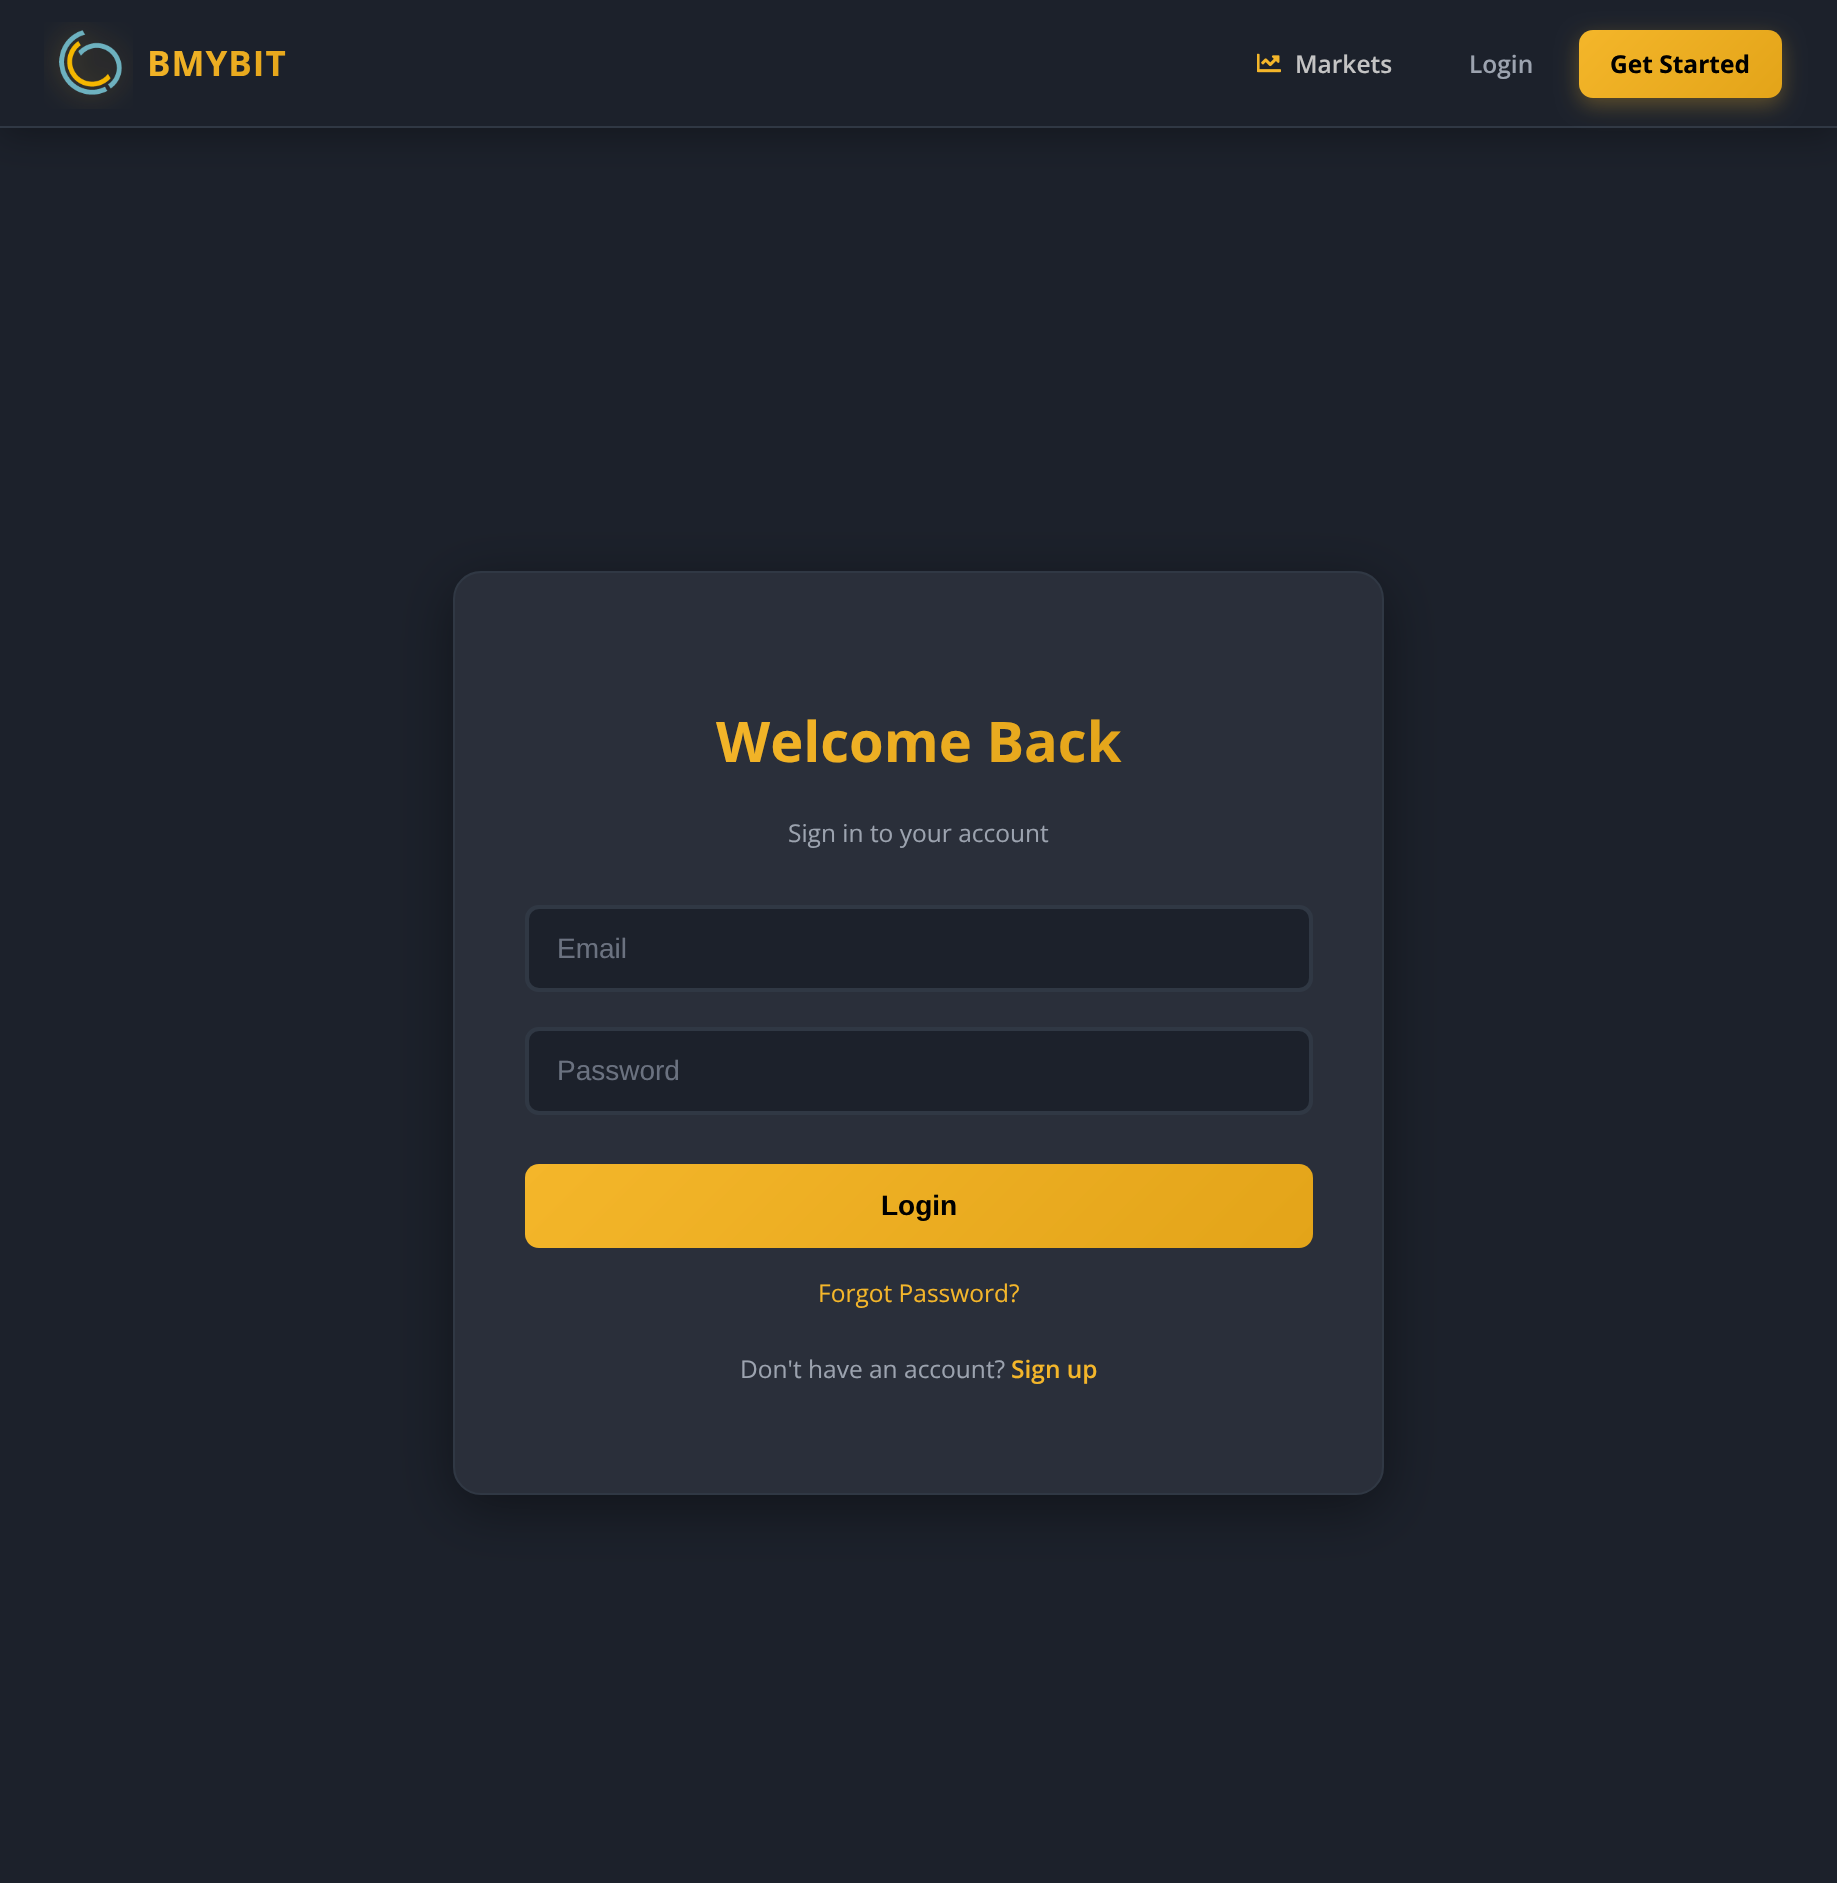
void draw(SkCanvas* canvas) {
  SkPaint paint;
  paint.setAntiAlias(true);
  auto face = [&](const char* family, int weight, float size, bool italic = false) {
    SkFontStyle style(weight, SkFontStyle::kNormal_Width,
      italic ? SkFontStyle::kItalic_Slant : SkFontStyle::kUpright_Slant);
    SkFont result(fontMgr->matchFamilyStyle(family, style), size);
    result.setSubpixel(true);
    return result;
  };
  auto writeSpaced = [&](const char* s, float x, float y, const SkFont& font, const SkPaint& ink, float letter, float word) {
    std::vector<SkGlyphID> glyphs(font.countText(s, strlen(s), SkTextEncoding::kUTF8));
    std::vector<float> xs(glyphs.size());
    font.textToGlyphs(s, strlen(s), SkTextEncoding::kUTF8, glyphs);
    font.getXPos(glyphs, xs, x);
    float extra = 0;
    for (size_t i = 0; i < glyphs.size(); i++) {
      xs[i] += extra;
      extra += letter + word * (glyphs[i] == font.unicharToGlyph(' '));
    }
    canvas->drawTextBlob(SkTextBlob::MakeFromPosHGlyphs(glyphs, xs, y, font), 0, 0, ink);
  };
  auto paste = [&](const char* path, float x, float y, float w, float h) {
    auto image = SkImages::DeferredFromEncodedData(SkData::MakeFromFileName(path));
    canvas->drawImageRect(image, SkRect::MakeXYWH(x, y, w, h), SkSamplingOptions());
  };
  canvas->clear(0xff1c212b);
  paint.setColor(0x4d000000);
  paint.setMaskFilter(SkMaskFilter::MakeBlur(kNormal_SkBlurStyle, 17.5f));
  canvas->drawRect(SkRect::MakeXYWH(0, 7, 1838, 128), paint);
  paint.setMaskFilter(nullptr);
  paint.setColor(0xff1c212b);
  canvas->drawRect(SkRect::MakeXYWH(0, 0, 1837, 126), paint);
  paint.setColor(0xff303844);
  canvas->drawRect(SkRect::MakeXYWH(0, 126, 1837, 2), paint);
  paste("img/1.png", 44, 22, 89, 87);
  paste("img/2.png", 1257, 53, 24, 20);
  paint.setColor(0x4df4b62a);
  paint.setMaskFilter(SkMaskFilter::MakeBlur(kNormal_SkBlurStyle, 10.5f));
  canvas->drawRoundRect(SkRect::MakeXYWH(1579, 37, 203, 68), 14, 14, paint);
  paint.setMaskFilter(nullptr);
  {
    const SkColor colors[] = {0xfff4b62a, 0xffe3a419};
    const float stops[] = {0, 1};
    const SkPoint ends[] = {{1612, -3.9f}, {1748, 132}};
    paint.setShader(SkGradientShader::MakeLinear(ends, colors, stops, 2, SkTileMode::kClamp));
    paint.setAlpha(255);
  }
  canvas->drawRoundRect(SkRect::MakeXYWH(1579, 30, 203, 68), 14, 14, paint);
  paint.setShader(nullptr);
  paint.setColor(0x66000000);
  paint.setMaskFilter(SkMaskFilter::MakeBlur(kNormal_SkBlurStyle, 28));
  canvas->drawRoundRect(SkRect::MakeXYWH(453, 585, 931, 924), 28, 28, paint);
  paint.setMaskFilter(nullptr);
  paint.setColor(0xff2a2f3a);
  canvas->drawRoundRect(SkRect::MakeXYWH(454, 572, 929, 922), 27, 27, paint);
  paint.setStroke(true);
  paint.setStrokeWidth(2);
  paint.setColor(0xff303844);
  canvas->drawRoundRect(SkRect::MakeXYWH(454, 572, 929, 922), 27, 27, paint);
  paint.setStroke(false);
  paint.setColor(0xff1c212b);
  canvas->drawRoundRect(SkRect::MakeXYWH(527, 907, 784, 83), 12, 12, paint);
  paint.setStroke(true);
  paint.setStrokeWidth(4);
  paint.setColor(0xff303844);
  canvas->drawRoundRect(SkRect::MakeXYWH(527, 907, 784, 83), 12, 12, paint);
  paint.setStroke(false);
  paint.setColor(0xff1c212b);
  canvas->drawRoundRect(SkRect::MakeXYWH(527, 1029, 784, 84), 12, 12, paint);
  paint.setStroke(true);
  paint.setColor(0xff303844);
  canvas->drawRoundRect(SkRect::MakeXYWH(527, 1029, 784, 84), 12, 12, paint);
  paint.setStroke(false);
  {
    const SkColor colors[] = {0xfff4b62a, 0xffe3a419};
    const float stops[] = {0, 1};
    const SkPoint ends[] = {{701, 988}, {1137, 1424}};
    paint.setShader(SkGradientShader::MakeLinear(ends, colors, stops, 2, SkTileMode::kClamp));
    paint.setAlpha(255);
  }
  canvas->drawRoundRect(SkRect::MakeXYWH(525, 1164, 788, 84), 14, 14, paint);
  auto f0 = face("Open Sans", 700, 35);
  {
    const SkColor colors[] = {0xfff4b62a, 0xffe3a419};
    const float stops[] = {0, 1};
    const SkPoint ends[] = {{170, 16}, {263, 110}};
    paint.setShader(SkGradientShader::MakeLinear(ends, colors, stops, 2, SkTileMode::kClamp));
    paint.setAlpha(255);
  }
  writeSpaced("BMYBIT", 147, 76, f0, paint, 1, 0);
  auto f1 = face("Open Sans", 600, 24.5f);
  paint.setShader(nullptr);
  paint.setColor(0xffc4c4c4);
  canvas->drawString("Markets", 1295, 73, f1, paint);
  paint.setColor(0xff9ca3af);
  canvas->drawString("Login", 1469, 73, f1, paint);
  auto f2 = face("Open Sans", 700, 24.5f);
  paint.setColor(0xff000000);
  canvas->drawString("Get Started", 1610, 73, f2, paint);
  auto f3 = face("Open Sans", 700, 56);
  {
    const SkColor colors[] = {0xfff4b62a, 0xffe3a419};
    const float stops[] = {0, 1};
    const SkPoint ends[] = {{799, 620}, {1039, 860}};
    paint.setShader(SkGradientShader::MakeLinear(ends, colors, stops, 2, SkTileMode::kClamp));
    paint.setAlpha(255);
  }
  canvas->drawString("Welcome Back", 716, 762, f3, paint);
  auto f4 = face("Open Sans", 400, 24.5f);
  paint.setShader(nullptr);
  paint.setColor(0xff9ca3af);
  canvas->drawString("Sign in to your account", 788, 842, f4, paint);
  auto f5 = face("Liberation Sans", 400, 28);
  paint.setColor(0xff6b7280);
  canvas->drawString("Email", 557, 958, f5, paint);
  canvas->drawString("Password", 557, 1080, f5, paint);
  auto f6 = face("Liberation Sans", 700, 28);
  paint.setColor(0xff000000);
  canvas->drawString("Login", 881, 1215, f6, paint);
  paint.setColor(0xfff4b62a);
  canvas->drawString("Forgot Password?", 818, 1302, f4, paint);
  paint.setColor(0xff9ca3af);
  canvas->drawString("Don't have an account?", 740, 1378, f4, paint);
  paint.setColor(0xfff4b62a);
  canvas->drawString("Sign up", 1011, 1378, f1, paint);
}
